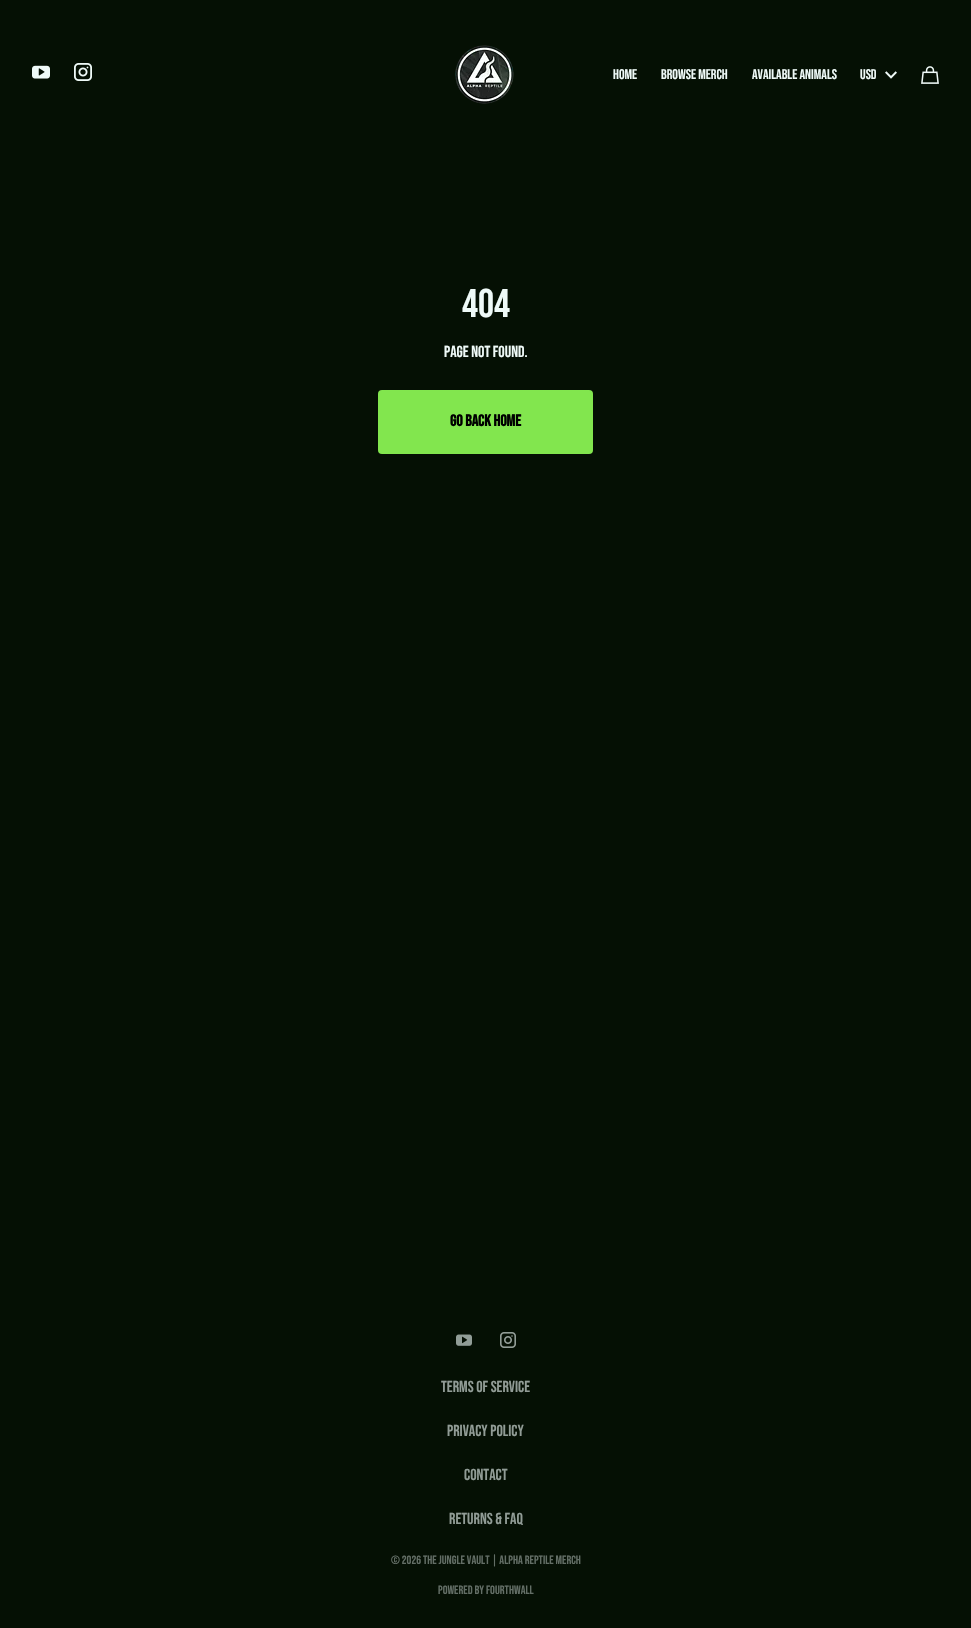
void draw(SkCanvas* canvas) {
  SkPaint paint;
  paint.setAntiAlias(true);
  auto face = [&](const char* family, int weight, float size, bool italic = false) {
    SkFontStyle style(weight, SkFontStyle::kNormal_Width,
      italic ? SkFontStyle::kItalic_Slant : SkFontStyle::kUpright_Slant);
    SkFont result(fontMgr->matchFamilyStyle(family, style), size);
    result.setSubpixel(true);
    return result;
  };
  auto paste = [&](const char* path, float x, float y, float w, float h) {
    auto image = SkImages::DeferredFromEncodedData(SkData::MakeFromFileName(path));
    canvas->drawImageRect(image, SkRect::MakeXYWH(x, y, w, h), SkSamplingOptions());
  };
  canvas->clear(0xff051004);
  paste("img/1.png", 32, 65, 18, 14);
  paste("img/2.png", 74, 63, 18, 18);
  paste("img/3.png", 455, 45, 59, 59);
  paste("img/4.png", 885, 71, 12, 8);
  paste("img/5.png", 921, 66, 18, 18);
  paint.setColor(0xff82e64e);
  canvas->drawRoundRect(SkRect::MakeXYWH(378, 390, 215, 64), 4, 4, paint);
  paste("img/6.png", 456, 1334, 16, 12);
  paste("img/7.png", 500, 1332, 16, 16);
  auto f0 = face("Bebas Neue", 400, 14);
  paint.setColor(0xffeffaf8);
  {
    const struct { const char* s; float x, y; } items[] = {
      {"Home", 613, 79},
      {"Browse Merch", 661, 79},
      {"Available Animals", 752, 79},
      {"USD", 860, 79},
    };
    for (auto [s, x, y] : items) {
      canvas->drawString(s, x, y, f0, paint);
    }
  }
  auto f1 = face("Bebas Neue", 400, 40);
  canvas->drawString("404", 462, 317, f1, paint);
  auto f2 = face("Bebas Neue", 400, 16);
  canvas->drawString("Page not found.", 444, 357, f2, paint);
  auto f3 = face("Bebas Neue", 700, 16);
  paint.setColor(0xff000000);
  canvas->drawString("Go Back Home", 450, 426, f3, paint);
  paint.setColor(0xff919c96);
  {
    const struct { const char* s; float x, y; } items[] = {
      {"Terms of Service", 441, 1392},
      {"Privacy Policy", 447, 1436},
      {"Contact", 464, 1480},
      {"Returns & FAQ", 449, 1524},
    };
    for (auto [s, x, y] : items) {
      canvas->drawString(s, x, y, f2, paint);
    }
  }
  auto f4 = face("Bebas Neue", 400, 12);
  paint.setColor(0xff636e66);
  canvas->drawString("© 2026 The Jungle Vault | Alpha Reptile Merch", 391, 1564, f4, paint);
  canvas->drawString("Powered by Fourthwall", 438, 1594, f4, paint);
}
